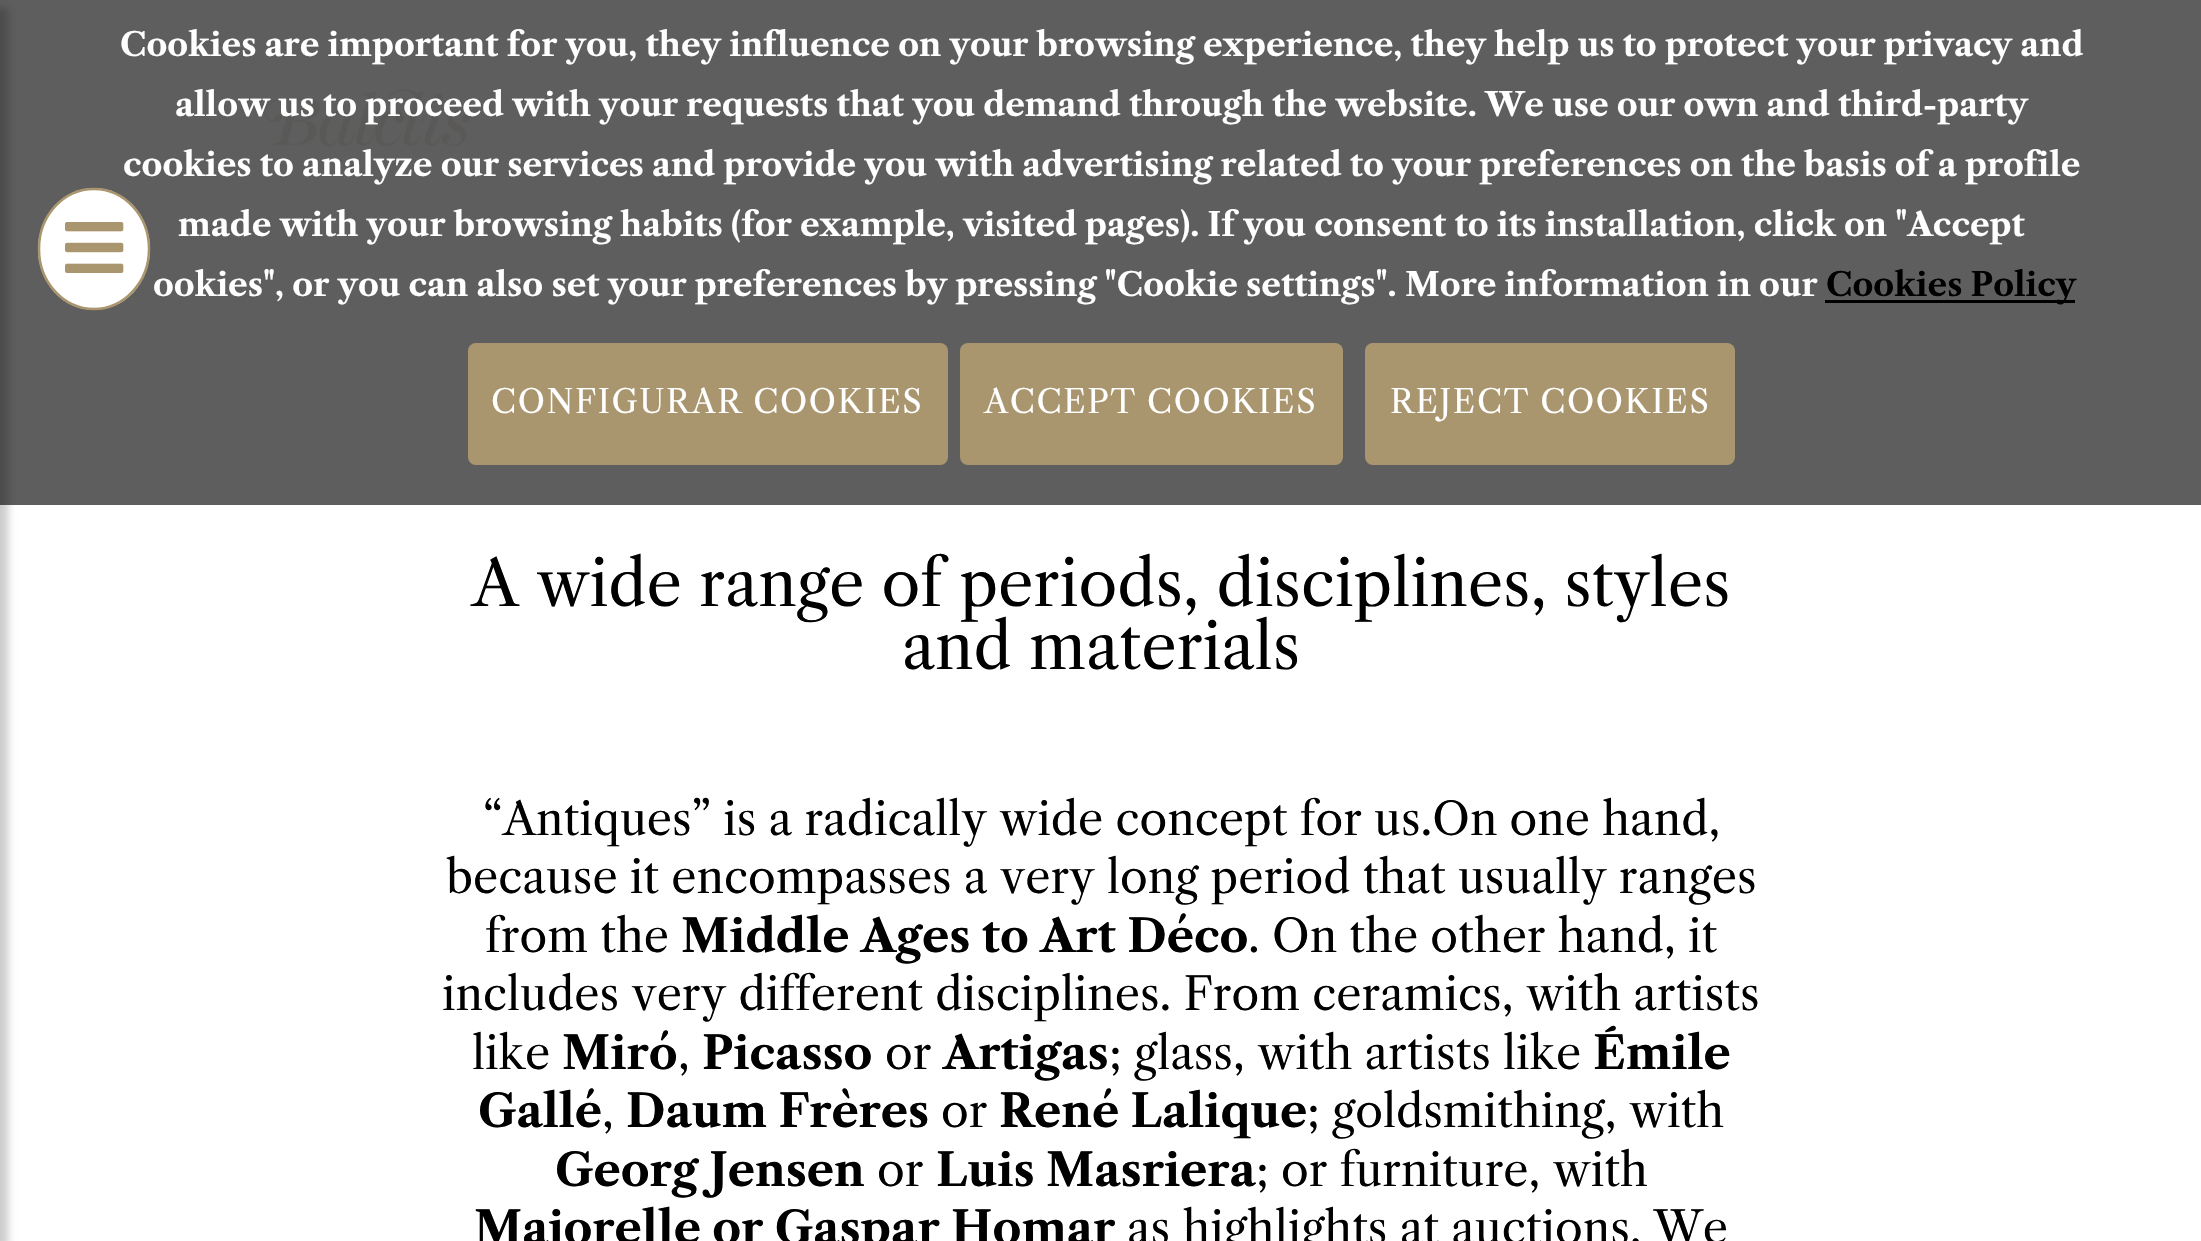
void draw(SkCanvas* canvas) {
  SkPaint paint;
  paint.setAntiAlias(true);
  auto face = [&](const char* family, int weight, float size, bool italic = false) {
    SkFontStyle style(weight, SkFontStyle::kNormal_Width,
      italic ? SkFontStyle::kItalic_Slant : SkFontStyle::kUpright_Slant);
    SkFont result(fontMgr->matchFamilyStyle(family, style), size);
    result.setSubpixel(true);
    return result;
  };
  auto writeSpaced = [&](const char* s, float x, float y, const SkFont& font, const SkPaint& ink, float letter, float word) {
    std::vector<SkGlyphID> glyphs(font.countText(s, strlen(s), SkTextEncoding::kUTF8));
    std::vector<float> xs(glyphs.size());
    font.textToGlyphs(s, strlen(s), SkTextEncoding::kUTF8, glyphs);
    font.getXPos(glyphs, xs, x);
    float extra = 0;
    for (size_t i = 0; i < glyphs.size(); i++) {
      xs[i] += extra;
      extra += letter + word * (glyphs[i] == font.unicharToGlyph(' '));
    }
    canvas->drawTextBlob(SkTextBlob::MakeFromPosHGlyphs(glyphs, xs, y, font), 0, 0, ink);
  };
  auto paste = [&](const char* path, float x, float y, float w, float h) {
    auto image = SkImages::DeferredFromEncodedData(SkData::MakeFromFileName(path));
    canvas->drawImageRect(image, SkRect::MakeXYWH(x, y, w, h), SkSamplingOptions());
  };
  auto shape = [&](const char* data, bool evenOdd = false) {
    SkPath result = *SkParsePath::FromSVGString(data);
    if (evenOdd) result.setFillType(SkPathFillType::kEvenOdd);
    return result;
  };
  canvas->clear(0xffffffff);
  paint.setColor(0xff5e5e5e);
  canvas->drawRect(SkRect::MakeXYWH(0, 0, 2201, 505), paint);
  paint.setColor(0x33000000);
  paint.setMaskFilter(SkMaskFilter::MakeBlur(kNormal_SkBlurStyle, 4));
  canvas->drawRect(SkRect::MakeXYWH(-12, 8, 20, 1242), paint);
  paint.setMaskFilter(nullptr);
  paint.setColor(0xffffffff);
  canvas->drawOval(SkRect::MakeXYWH(38, 188, 112, 122), paint);
  paint.setStroke(true);
  paint.setStrokeWidth(2.5f);
  paint.setColor(0xffaa966e);
  canvas->drawPath(shape("M94 189C124 189 149 215.5 149 249C149 282 124 309 94 309C63.5 309 39 282 39 249C39 215.5 63.5 189 94 189Z"), paint);
  paste("img/1.png", 65, 222, 59, 51);
  paint.setStroke(false);
  paint.setColor(0xff000000);
  canvas->drawRect(SkRect::MakeXYWH(1825, 300, 250, 3), paint);
  paint.setColor(0xffaa966e);
  canvas->drawRoundRect(SkRect::MakeXYWH(468, 343, 480, 122), 8, 8, paint);
  canvas->drawRoundRect(SkRect::MakeXYWH(960, 343, 383, 122), 8, 8, paint);
  canvas->drawRoundRect(SkRect::MakeXYWH(1365, 343, 370, 122), 8, 8, paint);
  paste("img/2.png", 263, 88, 208, 59);
  auto f0 = face("Libre Caslon Text", 700, 32.5f);
  paint.setColor(0xffffffff);
  {
    const struct { const char* s; float x, y; } items[] = {
      {"Cookies are important for you, they influence on your browsing experience, they help us to protect your privacy and", 120, 56},
      {"allow us to proceed with your requests that you demand through the website. We use our own and third-party", 175, 116},
      {"cookies to analyze our services and provide you with advertising related to your preferences on the basis of a profile", 123, 176},
      {"made with your browsing habits (for example, visited pages). If you consent to its installation, click on \"Accept", 178, 236},
      {"ookies\", or you can also set your preferences by pressing \"Cookie settings\". More information in our", 153, 296},
    };
    for (auto [s, x, y] : items) {
      canvas->drawString(s, x, y, f0, paint);
    }
  }
  paint.setColor(0xff000000);
  canvas->drawString("Cookies Policy", 1826, 296, f0, paint);
  auto f1 = face("Libre Caslon Text", 400, 32.5f);
  paint.setColor(0xffffffff);
  {
    const struct { const char* s; float x, y; } items[] = {
      {"CONFIGURAR COOKIES", 491, 413},
      {"ACCEPT COOKIES", 984, 413},
      {"REJECT COOKIES", 1390, 413},
    };
    for (auto [s, x, y] : items) {
      writeSpaced(s, x, y, f1, paint, 1.6f, 0);
    }
  }
  auto f2 = face("Libre Caslon Text", 400, 63);
  paint.setColor(0xff000000);
  canvas->drawString("A wide range of periods, disciplines, styles", 472, 606, f2, paint);
  canvas->drawString("and materials", 902, 669, f2, paint);
  auto f3 = face("Libre Caslon Text", 400, 45);
  {
    const struct { const char* s; float x, y; } items[] = {
      {"“Antiques” is a radically wide concept for us.On one hand,", 483, 835},
      {"because it encompasses a very long period that usually ranges", 446, 893},
      {"from the", 485, 952},
    };
    for (auto [s, x, y] : items) {
      canvas->drawString(s, x, y, f3, paint);
    }
  }
  auto f4 = face("Libre Caslon Text", 700, 45);
  canvas->drawString("Middle Ages to Art Déco", 681, 952, f4, paint);
  {
    const struct { const char* s; float x, y; } items[] = {
      {". On the other hand, it", 1248, 952},
      {"includes very different disciplines. From ceramics, with artists", 442, 1010},
      {"like", 472, 1069},
    };
    for (auto [s, x, y] : items) {
      canvas->drawString(s, x, y, f3, paint);
    }
  }
  canvas->drawString("Miró", 562, 1069, f4, paint);
  canvas->drawString(",", 678, 1069, f3, paint);
  canvas->drawString("Picasso", 702, 1069, f4, paint);
  canvas->drawString("or", 885, 1069, f3, paint);
  canvas->drawString("Artigas", 943, 1069, f4, paint);
  canvas->drawString("; glass, with artists like", 1109, 1069, f3, paint);
  canvas->drawString("Émile", 1593, 1069, f4, paint);
  canvas->drawString("Gallé", 478, 1127, f4, paint);
  canvas->drawString(",", 602, 1127, f3, paint);
  canvas->drawString("Daum Frères", 626, 1127, f4, paint);
  canvas->drawString("or", 941, 1127, f3, paint);
  canvas->drawString("René Lalique", 999, 1127, f4, paint);
  canvas->drawString("; goldsmithing, with", 1307, 1127, f3, paint);
  canvas->drawString("Georg Jensen", 555, 1186, f4, paint);
  canvas->drawString("or", 877, 1186, f3, paint);
  canvas->drawString("Luis Masriera", 936, 1186, f4, paint);
  canvas->drawString("; or furniture, with", 1256, 1186, f3, paint);
  canvas->drawString("Majorelle or Gaspar Homar", 474, 1244, f4, paint);
  canvas->drawString("as highlights at auctions. We", 1127, 1244, f3, paint);
}
